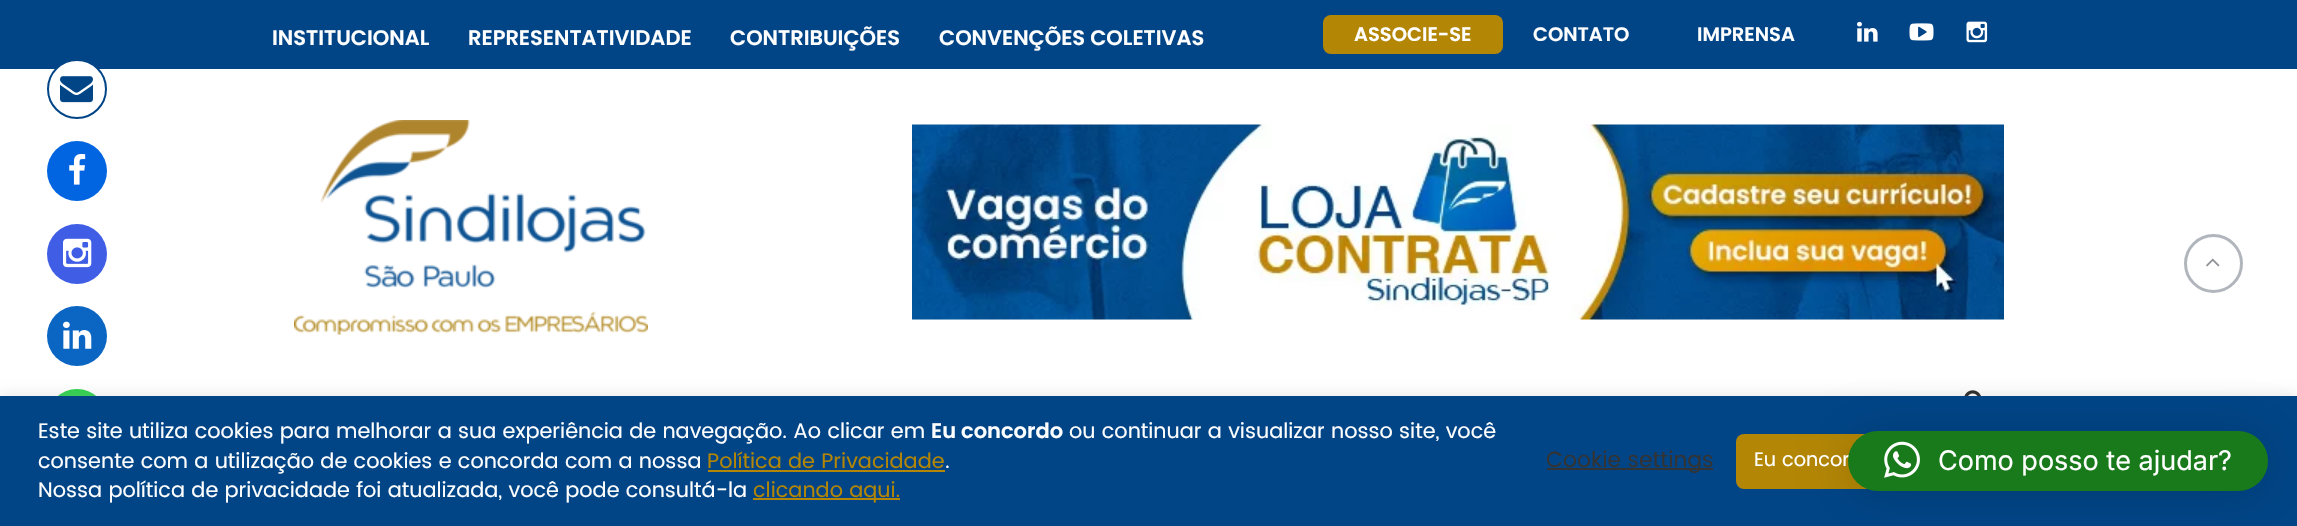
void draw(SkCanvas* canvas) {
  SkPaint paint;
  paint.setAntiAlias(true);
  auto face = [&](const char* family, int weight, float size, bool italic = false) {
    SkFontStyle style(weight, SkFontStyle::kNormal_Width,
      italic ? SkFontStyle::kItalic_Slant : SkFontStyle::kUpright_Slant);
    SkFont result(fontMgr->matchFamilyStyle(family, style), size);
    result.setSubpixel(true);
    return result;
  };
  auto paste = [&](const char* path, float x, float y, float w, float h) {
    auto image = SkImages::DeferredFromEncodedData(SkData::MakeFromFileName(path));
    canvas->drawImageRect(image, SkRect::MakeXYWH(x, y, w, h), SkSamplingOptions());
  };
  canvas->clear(0xffffffff);
  paint.setColor(0xff014587);
  canvas->drawRect(SkRect::MakeXYWH(0, 0, 2297, 69), paint);
  paint.setColor(0xffb38605);
  canvas->drawRoundRect(SkRect::MakeXYWH(1323, 15, 180, 39), 8, 8, paint);
  paste("img/1.png", 1857, 21, 21, 21);
  paste("img/2.png", 1909, 23, 25, 18);
  paste("img/3.png", 1966, 21, 22, 22);
  paste("img/4.png", 294, 120, 354, 215);
  paste("img/5.png", 912, 124, 1092, 196);
  paste("img/6.png", 1964, 390, 17, 6);
  paint.setColor(0xffffffff);
  canvas->drawCircle(77, 89, 29, paint);
  paint.setStroke(true);
  paint.setStrokeWidth(2);
  paint.setColor(0xff014587);
  canvas->drawCircle(77, 89, 29, paint);
  paste("img/7.png", 60, 76, 33, 27);
  paint.setStroke(false);
  paint.setColor(0xff0165e1);
  canvas->drawCircle(77, 171, 30, paint);
  paste("img/8.png", 69, 154, 17, 31);
  paint.setColor(0xff405de6);
  canvas->drawCircle(77, 254, 30, paint);
  paste("img/9.png", 63, 238, 29, 30);
  paint.setColor(0xff0a66c2);
  canvas->drawCircle(77, 336, 30, paint);
  paste("img/10.png", 63, 321, 29, 28);
  paint.setColor(0xff28d146);
  canvas->drawCircle(77, 419, 30, paint);
  paint.setStroke(true);
  paint.setStrokeWidth(3);
  paint.setColor(0xffb1b5bc);
  canvas->drawCircle(2213.5f, 263.5f, 28, paint);
  paste("img/11.png", 2206, 258, 14, 9);
  paint.setStroke(false);
  paint.setColor(0x4dacabab);
  paint.setMaskFilter(SkMaskFilter::MakeBlur(kNormal_SkBlurStyle, 7.5f));
  canvas->drawRect(SkRect::MakeXYWH(0, 395, 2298, 130), paint);
  paint.setMaskFilter(nullptr);
  {
    const struct { float x, y, w, h; SkColor color; } items[] = {
      {0, 396, 2297, 130, 0xff014587},
      {708, 470, 237, 2, 0xffb38605},
      {753, 498, 147, 2, 0xffb38605},
      {1547, 468, 166, 2, 0xff333333},
    };
    for (auto [x, y, w, h, color] : items) {
      paint.setColor(color);
      canvas->drawRect(SkRect::MakeXYWH(x, y, w, h), paint);
    }
  }
  paint.setColor(0xffb38605);
  canvas->drawRoundRect(SkRect::MakeXYWH(1736, 434, 157, 55), 8, 8, paint);
  paint.setColor(0x29000000);
  paint.setMaskFilter(SkMaskFilter::MakeBlur(kNormal_SkBlurStyle, 24));
  canvas->drawRoundRect(SkRect::MakeXYWH(1848, 434, 420, 60), 30, 30, paint);
  paint.setMaskFilter(nullptr);
  auto f0 = face("Poppins", 600, 21);
  paint.setColor(0xffffffff);
  {
    const struct { const char* s; float x, y; } items[] = {
      {"INSTITUCIONAL", 272, 45},
      {"REPRESENTATIVIDADE", 468, 45},
      {"CONTRIBUIÇÕES", 730, 45},
      {"CONVENÇÕES COLETIVAS", 939, 45},
    };
    for (auto [s, x, y] : items) {
      canvas->drawString(s, x, y, f0, paint);
    }
  }
  auto f1 = face("Poppins", 600, 19.5f);
  {
    const struct { const char* s; float x, y; } items[] = {
      {"ASSOCIE-SE", 1354, 41},
      {"CONTATO", 1533, 41},
      {"IMPRENSA", 1697, 41},
    };
    for (auto [s, x, y] : items) {
      canvas->drawString(s, x, y, f1, paint);
    }
  }
  auto f2 = face("Poppins", 400, 21);
  canvas->drawString("Este site utiliza cookies para melhorar a sua experiência de navegação. Ao clicar em", 38, 438, f2, paint);
  canvas->drawString("Eu concordo", 931, 438, f0, paint);
  canvas->drawString("ou continuar a visualizar nosso site, você", 1069, 438, f2, paint);
  canvas->drawString("consente com a utilização de cookies e concorda com a nossa", 38, 468, f2, paint);
  paint.setColor(0xffb38605);
  canvas->drawString("Política de Privacidade", 707, 468, f2, paint);
  paint.setColor(0xffffffff);
  canvas->drawString(".", 945, 468, f2, paint);
  canvas->drawString("Nossa política de privacidade foi atualizada, você pode consultá-la", 38, 497, f2, paint);
  paint.setColor(0xffb38605);
  canvas->drawString("clicando aqui.", 753, 497, f2, paint);
  auto f3 = face("Poppins", 400, 22);
  paint.setColor(0xff333333);
  canvas->drawString("Cookie settings", 1546, 467, f3, paint);
  auto f4 = face("Poppins", 400, 19.5f);
  paint.setColor(0xffffffff);
  canvas->drawString("Eu concor", 1754, 466, f4, paint);
  paint.setColor(0xff187a1a);
  canvas->drawRoundRect(SkRect::MakeXYWH(1848, 431, 420, 60), 30, 30, paint);
  paste("img/12.png", 1884, 441, 36, 37);
  auto f5 = face("Inter", 400, 27);
  paint.setColor(0xffffffff);
  canvas->drawString("Como posso te ajudar?", 1938, 470, f5, paint);
}
